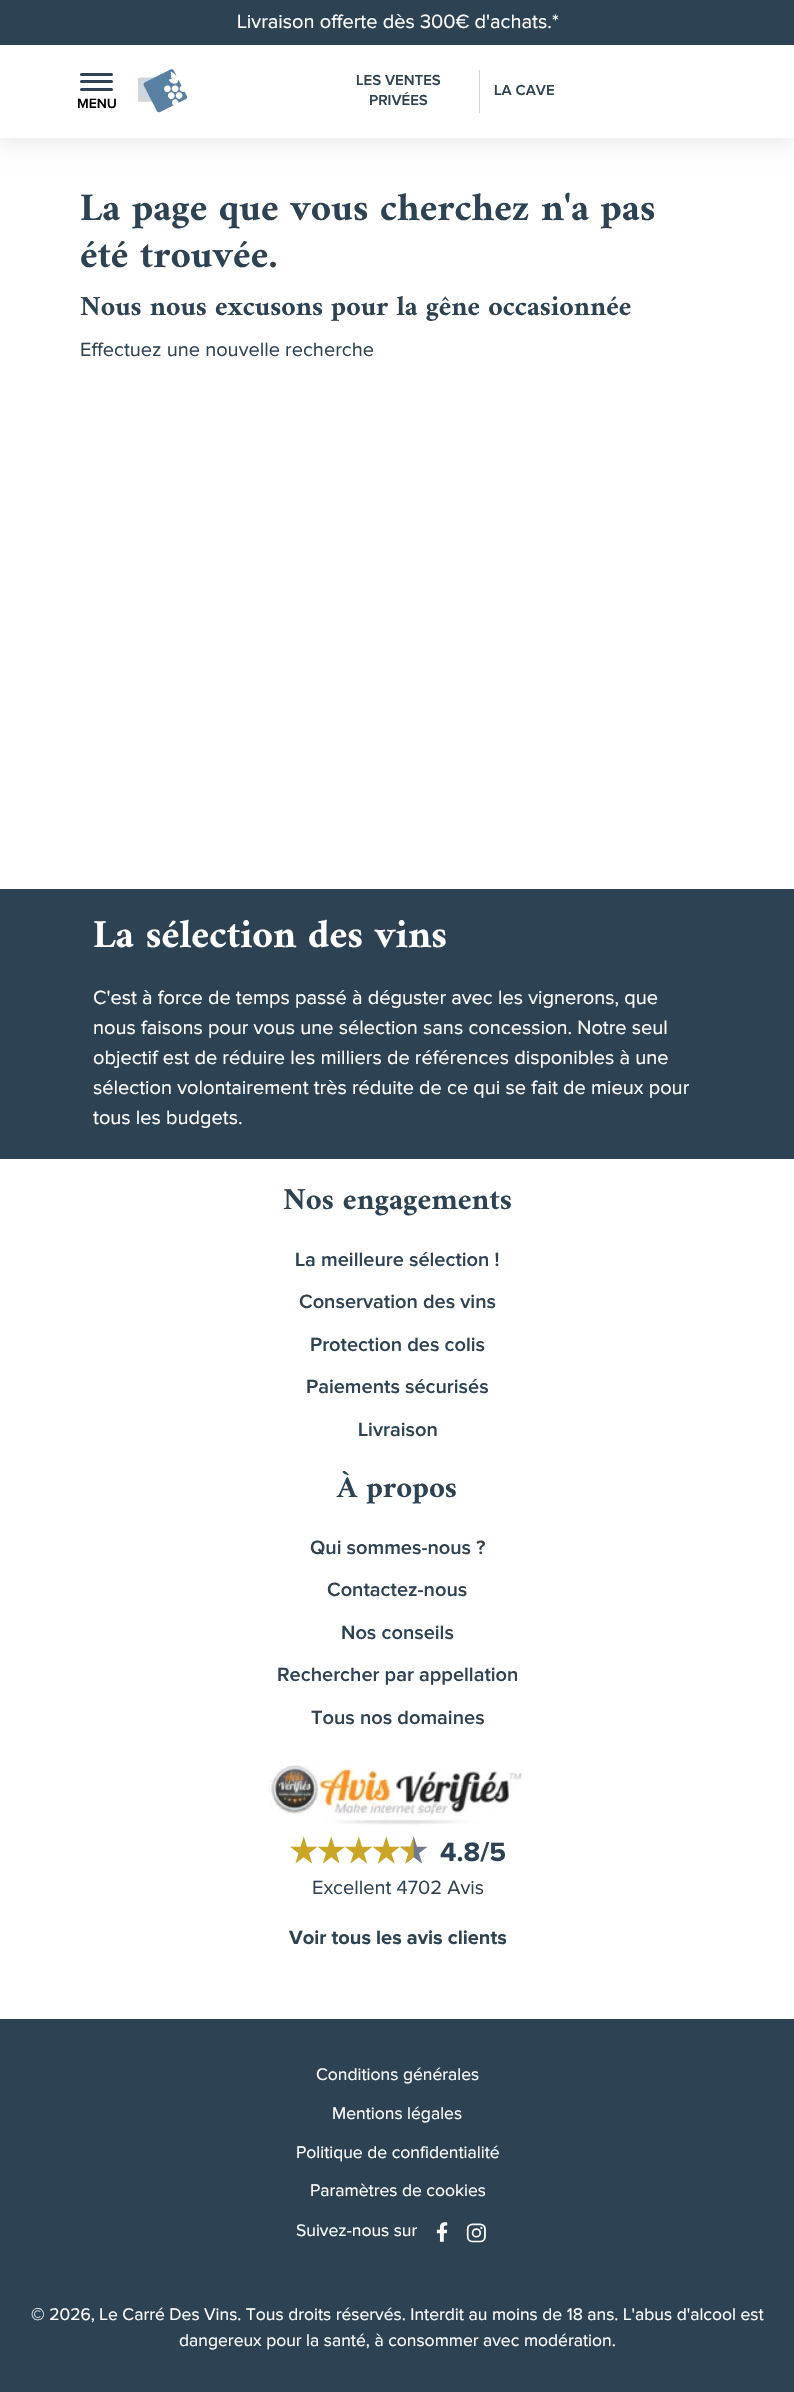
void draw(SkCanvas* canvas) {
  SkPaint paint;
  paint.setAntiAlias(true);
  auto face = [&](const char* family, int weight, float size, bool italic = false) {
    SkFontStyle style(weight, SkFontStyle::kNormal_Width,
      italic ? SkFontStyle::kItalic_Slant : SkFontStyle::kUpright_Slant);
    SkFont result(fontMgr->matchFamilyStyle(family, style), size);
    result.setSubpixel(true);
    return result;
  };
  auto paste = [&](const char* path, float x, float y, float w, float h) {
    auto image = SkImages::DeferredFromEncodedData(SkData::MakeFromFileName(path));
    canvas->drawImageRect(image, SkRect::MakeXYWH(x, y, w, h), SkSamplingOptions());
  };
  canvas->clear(0xffffffff);
  paint.setColor(0x14000000);
  paint.setMaskFilter(SkMaskFilter::MakeBlur(kNormal_SkBlurStyle, 9.5f));
  canvas->drawRect(SkRect::MakeXYWH(-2, 6, 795, 138), paint);
  paint.setMaskFilter(nullptr);
  paint.setColor(0xffffffff);
  canvas->drawRect(SkRect::MakeXYWH(0, 45, 794, 93), paint);
  paint.setColor(0xff2d4253);
  canvas->drawRect(SkRect::MakeXYWH(0, 0, 794, 45), paint);
  canvas->drawRoundRect(SkRect::MakeXYWH(80, 73, 33, 3), 1.5f, 1.5f, paint);
  canvas->drawRoundRect(SkRect::MakeXYWH(80, 80, 33, 3), 1.5f, 1.5f, paint);
  canvas->drawRoundRect(SkRect::MakeXYWH(80, 88, 33, 3), 1.5f, 1.5f, paint);
  paste("img/1.png", 138, 69, 50, 44);
  paint.setColor(0xffd0d6dd);
  canvas->drawRect(SkRect::MakeXYWH(479, 70, 1, 43), paint);
  paint.setColor(0xff2d4253);
  canvas->drawRect(SkRect::MakeXYWH(0, 889, 794, 270), paint);
  paste("img/2.png", 269, 1765, 253, 60);
  paste("img/3.png", 290, 1836, 28, 28);
  paste("img/4.png", 317, 1836, 28, 28);
  paste("img/3.png", 345, 1836, 28, 28);
  paste("img/4.png", 372, 1836, 28, 28);
  paste("img/5.png", 400, 1836, 28, 28);
  canvas->drawRect(SkRect::MakeXYWH(0, 2019, 794, 373), paint);
  paste("img/6.png", 436, 2222, 12, 20);
  paste("img/7.png", 466, 2223, 20, 20);
  auto f0 = face("Proxima Nova", 400, 20);
  paint.setColor(0xffffffff);
  canvas->drawString("Livraison offerte dès 300€ d'achats.*", 237, 28, f0, paint);
  auto f1 = face("Proxima Nova", 600, 14);
  paint.setColor(0xff000000);
  canvas->drawString("MENU", 77, 108, f1, paint);
  auto f2 = face("Proxima Nova", 600, 15);
  paint.setColor(0xff2d4253);
  {
    const struct { const char* s; float x, y; } items[] = {
      {"LES VENTES", 356, 85},
      {"PRIVÉES", 369, 105},
      {"LA CAVE", 494, 95},
    };
    for (auto [s, x, y] : items) {
      canvas->drawString(s, x, y, f2, paint);
    }
  }
  auto f3 = face("Amiri", 700, 39.4f);
  canvas->drawString("La page que vous cherchez n'a pas", 80, 220, f3, paint);
  canvas->drawString("été trouvée.", 80, 267, f3, paint);
  auto f4 = face("Amiri", 700, 27.9f);
  canvas->drawString("Nous nous excusons pour la gêne occasionnée", 80, 315, f4, paint);
  canvas->drawString("Effectuez une nouvelle recherche", 80, 356, f0, paint);
  auto f5 = face("Amiri", 700, 40);
  paint.setColor(0xffffffff);
  canvas->drawString("La sélection des vins", 93, 947, f5, paint);
  {
    const struct { const char* s; float x, y; } items[] = {
      {"C'est à force de temps passé à déguster avec les vignerons, que", 93, 1004},
      {"nous faisons pour vous une sélection sans concession. Notre seul", 93, 1034},
      {"objectif est de réduire les milliers de références disponibles à une", 93, 1064},
      {"sélection volontairement très réduite de ce qui se fait de mieux pour", 93, 1094},
      {"tous les budgets.", 93, 1124},
    };
    for (auto [s, x, y] : items) {
      canvas->drawString(s, x, y, f0, paint);
    }
  }
  auto f6 = face("Amiri", 700, 30.75f);
  paint.setColor(0xff2d4253);
  canvas->drawString("Nos engagements", 283, 1209, f6, paint);
  auto f7 = face("Proxima Nova", 600, 20);
  {
    const struct { const char* s; float x, y; } items[] = {
      {"La meilleure sélection !", 295, 1266},
      {"Conservation des vins", 299, 1308},
      {"Protection des colis", 310, 1351},
      {"Paiements sécurisés", 306, 1393},
      {"Livraison", 358, 1436},
    };
    for (auto [s, x, y] : items) {
      canvas->drawString(s, x, y, f7, paint);
    }
  }
  canvas->drawString("À propos", 337, 1497, f6, paint);
  {
    const struct { const char* s; float x, y; } items[] = {
      {"Qui sommes-nous ?", 310, 1554},
      {"Contactez-nous", 327, 1596},
      {"Nos conseils", 341, 1639},
      {"Rechercher par appellation", 277, 1681},
      {"Tous nos domaines", 311, 1724},
    };
    for (auto [s, x, y] : items) {
      canvas->drawString(s, x, y, f7, paint);
    }
  }
  auto f8 = face("Proxima Nova", 700, 27.5f);
  canvas->drawString("4.8/5", 440, 1861, f8, paint);
  canvas->drawString("Excellent 4702 Avis", 312, 1894, f0, paint);
  auto f9 = face("Proxima Nova", 700, 20);
  canvas->drawString("Voir tous les avis clients", 289, 1944, f9, paint);
  auto f10 = face("Proxima Nova", 400, 17.5f);
  paint.setColor(0xffffffff);
  {
    const struct { const char* s; float x, y; } items[] = {
      {"Conditions générales", 316, 2080},
      {"Mentions légales", 332, 2119},
      {"Politique de confidentialité", 296, 2158},
      {"Paramètres de cookies", 310, 2196},
      {"Suivez-nous sur", 296, 2236},
      {"© 2026, Le Carré Des Vins. Tous droits réservés. Interdit au moins de 18 ans. L'abus d'alcool est", 31, 2320},
      {"dangereux pour la santé, à consommer avec modération.", 179, 2346},
    };
    for (auto [s, x, y] : items) {
      canvas->drawString(s, x, y, f10, paint);
    }
  }
}
